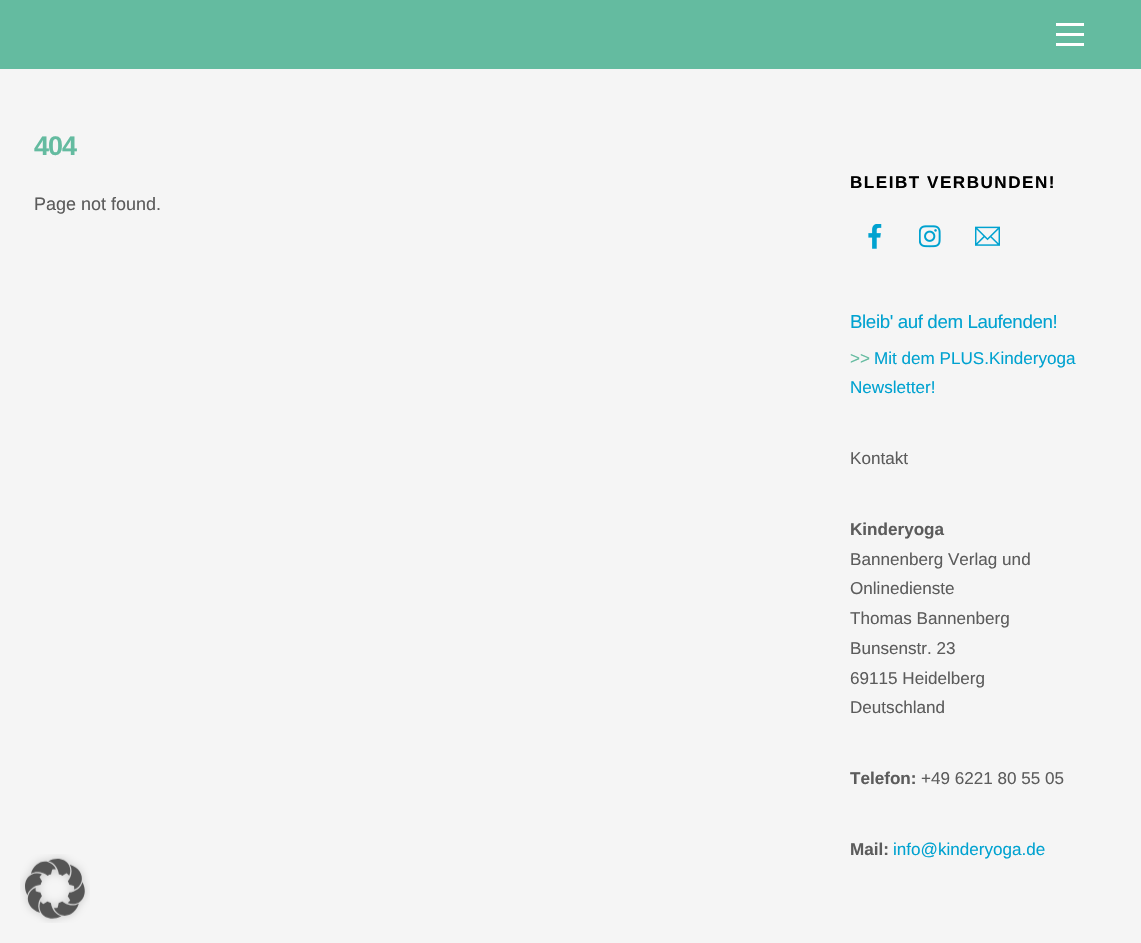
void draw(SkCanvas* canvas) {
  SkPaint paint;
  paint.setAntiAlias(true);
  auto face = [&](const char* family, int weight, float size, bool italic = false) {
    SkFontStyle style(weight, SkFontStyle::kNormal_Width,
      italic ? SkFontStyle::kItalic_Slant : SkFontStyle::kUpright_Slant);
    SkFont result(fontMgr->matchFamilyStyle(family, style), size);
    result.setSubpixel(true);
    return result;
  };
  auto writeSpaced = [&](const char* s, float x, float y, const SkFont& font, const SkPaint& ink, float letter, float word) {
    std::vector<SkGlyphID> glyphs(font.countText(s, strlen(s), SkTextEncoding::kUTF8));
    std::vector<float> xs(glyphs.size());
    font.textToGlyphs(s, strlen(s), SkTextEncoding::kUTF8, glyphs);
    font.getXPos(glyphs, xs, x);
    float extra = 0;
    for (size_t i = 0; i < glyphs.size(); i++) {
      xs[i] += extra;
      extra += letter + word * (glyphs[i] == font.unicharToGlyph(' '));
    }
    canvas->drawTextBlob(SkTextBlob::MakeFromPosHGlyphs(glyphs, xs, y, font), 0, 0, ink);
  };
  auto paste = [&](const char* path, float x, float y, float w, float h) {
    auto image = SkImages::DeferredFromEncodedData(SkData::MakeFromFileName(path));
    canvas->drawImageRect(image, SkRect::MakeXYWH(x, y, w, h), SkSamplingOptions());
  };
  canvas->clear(0xfff5f5f5);
  {
    const struct { float x, y, w, h; SkColor color; } items[] = {
      {0, 0, 1141, 69, 0xff64bba0},
      {1056, 43, 28, 3, 0xffffffff},
      {1056, 23, 28, 3, 0xffffffff},
      {1056, 33, 28, 3, 0xffffffff},
    };
    for (auto [x, y, w, h, color] : items) {
      paint.setColor(color);
      canvas->drawRect(SkRect::MakeXYWH(x, y, w, h), paint);
    }
  }
  paste("img/1.png", 868, 224, 14, 25);
  paste("img/2.png", 919, 225, 22, 23);
  paste("img/3.png", 975, 226, 25, 20);
  paste("img/4.png", 20, 854, 70, 69);
  auto f0 = face("Liberation Sans", 700, 27);
  paint.setColor(0xff64bba0);
  writeSpaced("404", 34, 155, f0, paint, -1, 0);
  auto f1 = face("Liberation Sans", 400, 18);
  paint.setColor(0xff5c5c5c);
  canvas->drawString("Page not found.", 34, 210, f1, paint);
  auto f2 = face("Liberation Sans", 700, 17.1f);
  paint.setColor(0xff000000);
  writeSpaced("BLEIBT VERBUNDEN!", 850, 188, f2, paint, 1.5f, 0);
  auto f3 = face("Liberation Sans", 400, 18.75f);
  paint.setColor(0xff00a2d0);
  writeSpaced("Bleib' auf dem Laufenden!", 850, 328, f3, paint, -0.4f, 0);
  auto f4 = face("Liberation Sans", 400, 17.1f);
  paint.setColor(0xff64bba0);
  canvas->drawString(">>", 850, 364, f4, paint);
  paint.setColor(0xff00a2d0);
  canvas->drawString("Mit dem PLUS.Kinderyoga", 874, 364, f4, paint);
  canvas->drawString("Newsletter!", 850, 393, f4, paint);
  paint.setColor(0xff5c5c5c);
  canvas->drawString("Kontakt", 850, 464, f4, paint);
  canvas->drawString("Kinderyoga", 850, 535, f2, paint);
  {
    const struct { const char* s; float x, y; } items[] = {
      {"Bannenberg Verlag und", 850, 565},
      {"Onlinedienste", 850, 594},
      {"Thomas Bannenberg", 850, 624},
      {"Bunsenstr. 23", 850, 654},
      {"69115 Heidelberg", 850, 684},
      {"Deutschland", 850, 713},
    };
    for (auto [s, x, y] : items) {
      canvas->drawString(s, x, y, f4, paint);
    }
  }
  canvas->drawString("Telefon:", 850, 784, f2, paint);
  canvas->drawString("+49 6221 80 55 05", 921, 784, f4, paint);
  canvas->drawString("Mail:", 850, 855, f2, paint);
  paint.setColor(0xff00a2d0);
  canvas->drawString("info@kinderyoga.de", 893, 855, f4, paint);
}
